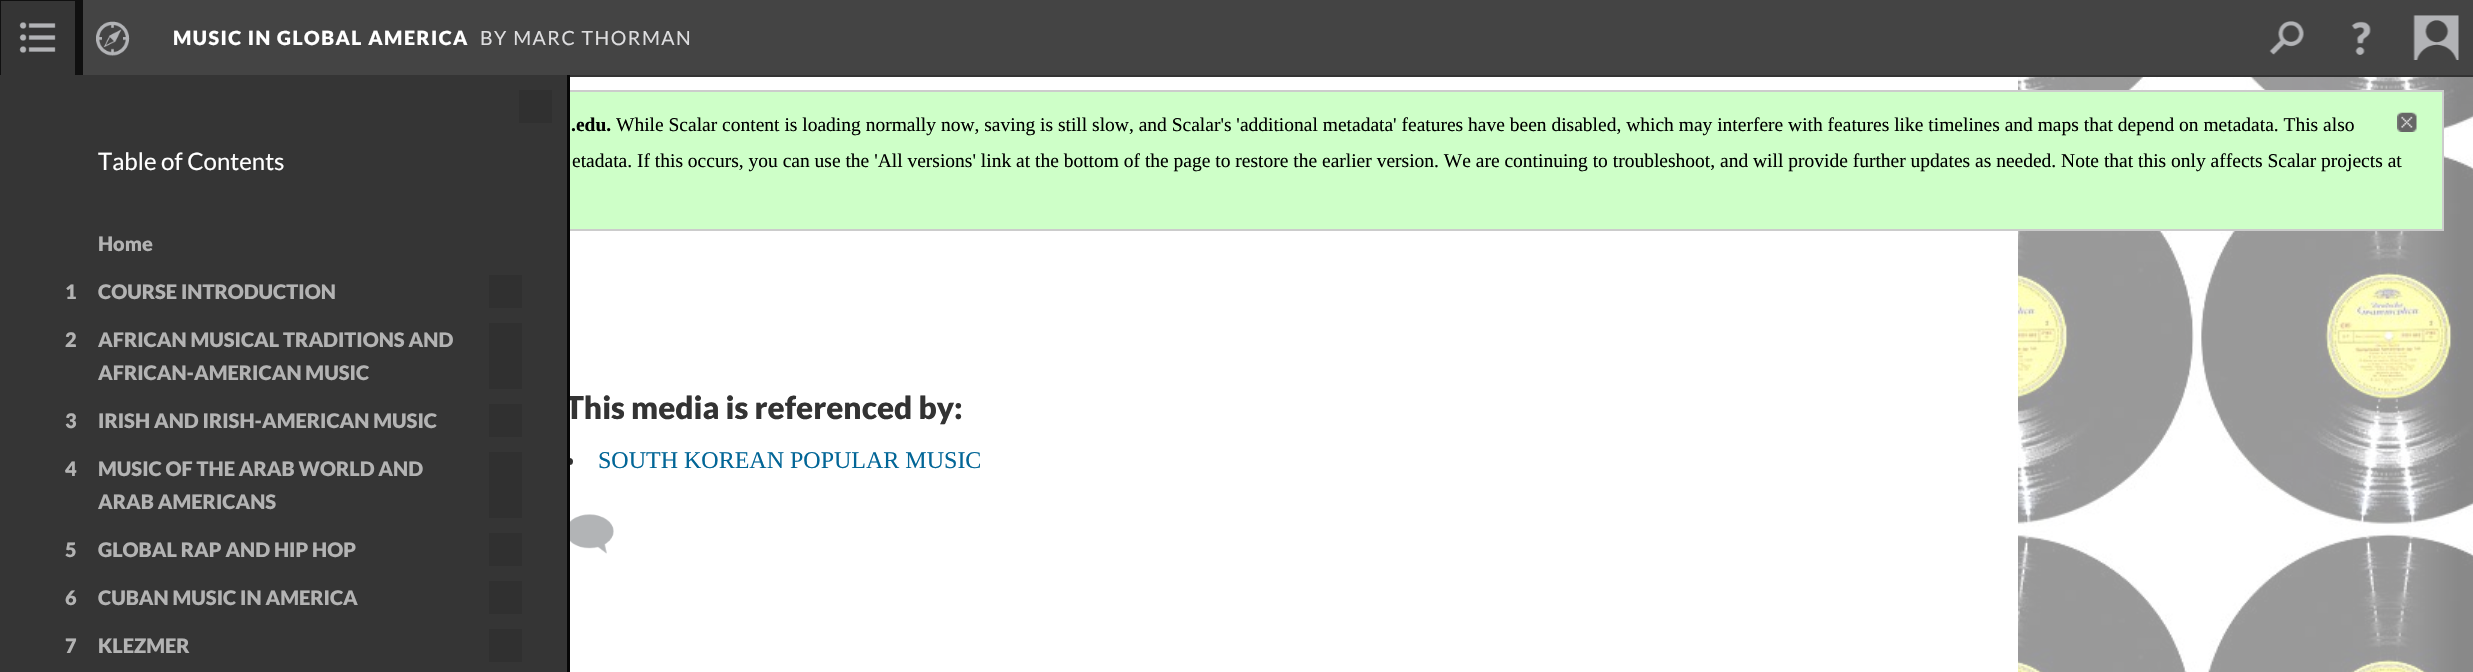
void draw(SkCanvas* canvas) {
  SkPaint paint;
  paint.setAntiAlias(true);
  auto face = [&](const char* family, int weight, float size, bool italic = false) {
    SkFontStyle style(weight, SkFontStyle::kNormal_Width,
      italic ? SkFontStyle::kItalic_Slant : SkFontStyle::kUpright_Slant);
    SkFont result(fontMgr->matchFamilyStyle(family, style), size);
    result.setSubpixel(true);
    return result;
  };
  auto writeSpaced = [&](const char* s, float x, float y, const SkFont& font, const SkPaint& ink, float letter, float word) {
    std::vector<SkGlyphID> glyphs(font.countText(s, strlen(s), SkTextEncoding::kUTF8));
    std::vector<float> xs(glyphs.size());
    font.textToGlyphs(s, strlen(s), SkTextEncoding::kUTF8, glyphs);
    font.getXPos(glyphs, xs, x);
    float extra = 0;
    for (size_t i = 0; i < glyphs.size(); i++) {
      xs[i] += extra;
      extra += letter + word * (glyphs[i] == font.unicharToGlyph(' '));
    }
    canvas->drawTextBlob(SkTextBlob::MakeFromPosHGlyphs(glyphs, xs, y, font), 0, 0, ink);
  };
  auto paste = [&](const char* path, float x, float y, float w, float h) {
    auto image = SkImages::DeferredFromEncodedData(SkData::MakeFromFileName(path));
    canvas->drawImageRect(image, SkRect::MakeXYWH(x, y, w, h), SkSamplingOptions());
  };
  canvas->clear(0xffffffff);
  paint.setColor(0xff444444);
  canvas->drawRect(SkRect::MakeXYWH(83, 0, 2390, 75), paint);
  paint.setColor(0xff333333);
  canvas->drawRect(SkRect::MakeXYWH(570, 75, 1903, 2), paint);
  paste("img/1.png", 2269, 21, 35, 34);
  paste("img/2.png", 2351, 21, 20, 34);
  paste("img/3.png", 2413, 15, 46, 45);
  paste("img/4.png", 96, 21, 34, 35);
  paint.setColor(0xff353535);
  canvas->drawRect(SkRect::MakeXYWH(1, 1, 74, 74), paint);
  paste("img/5.png", 19, 22, 37, 31);
  paint.setStroke(true);
  paint.setStrokeWidth(8);
  paint.setColor(0xff101010);
  canvas->drawRect(SkRect::MakeXYWH(-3, -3, 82, 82), paint);
  paste("img/6.png", 2018, 77, 455, 595);
  paste("img/7.png", 2018, 77, 455, 595);
  paint.setStroke(false);
  paint.setColor(0xffceffc8);
  canvas->drawRect(SkRect::MakeXYWH(570, 92, 1872, 137), paint);
  paint.setStroke(true);
  paint.setStrokeWidth(2);
  paint.setColor(0xffcccccc);
  canvas->drawRect(SkRect::MakeXYWH(16, 91, 2427, 139), paint);
  paste("img/8.png", 2397, 112, 20, 20);
  paint.setStroke(false);
  paint.setColor(0xff333333);
  canvas->drawCircle(569.5f, 461.5f, 3.5f, paint);
  paste("img/9.png", 570, 514, 44, 40);
  auto f0 = face("Lato", 900, 19.5f);
  paint.setColor(0xffffffff);
  writeSpaced("MUSIC IN GLOBAL AMERICA", 173, 45, f0, paint, 1.5f, 0);
  auto f1 = face("Lato", 400, 19.5f);
  paint.setColor(0xffdddddf);
  writeSpaced("BY MARC THORMAN", 480, 45, f1, paint, 1.5f, 0);
  auto f2 = face("Liberation Serif", 700, 19.5f);
  paint.setColor(0xff000000);
  canvas->drawString(".edu.", 571, 131, f2, paint);
  auto f3 = face("Liberation Serif", 400, 19.5f);
  canvas->drawString("While Scalar content is loading normally now, saving is still slow, and Scalar's 'additional metadata' features have been disabled, which may interfere with features like timelines and maps that depend on metadata. This also", 616, 131, f3, paint);
  canvas->drawString("etadata. If this occurs, you can use the 'All versions' link at the bottom of the page to restore the earlier version. We are continuing to troubleshoot, and will provide further updates as needed. Note that this only affects Scalar projects at", 572, 167, f3, paint);
  auto f4 = face("Lato", 900, 31.5f);
  paint.setColor(0xff333333);
  canvas->drawString("This media is referenced by:", 565, 419, f4, paint);
  {
    const struct { float x, y, w, h; SkColor color; } items[] = {
      {0, 75, 567, 597, 0xff353535},
      {519, 90, 33, 33, 0xff303030},
      {489, 629, 33, 33, 0xff303030},
    };
    for (auto [x, y, w, h, color] : items) {
      paint.setColor(color);
      canvas->drawRect(SkRect::MakeXYWH(x, y, w, h), paint);
    }
  }
  auto f5 = face("Lato", 900, 20);
  paint.setColor(0xffb3b3b3);
  canvas->drawString("7", 65, 653, f5, paint);
  canvas->drawString("KLEZMER", 98, 653, f5, paint);
  paint.setColor(0xff303030);
  canvas->drawRect(SkRect::MakeXYWH(489, 581, 33, 33), paint);
  paint.setColor(0xffb3b3b3);
  canvas->drawString("6", 65, 605, f5, paint);
  canvas->drawString("CUBAN MUSIC IN AMERICA", 98, 605, f5, paint);
  paint.setColor(0xff303030);
  canvas->drawRect(SkRect::MakeXYWH(489, 533, 33, 33), paint);
  paint.setColor(0xffb3b3b3);
  canvas->drawString("5", 65, 557, f5, paint);
  canvas->drawString("GLOBAL RAP AND HIP HOP", 98, 557, f5, paint);
  paint.setColor(0xff303030);
  canvas->drawRect(SkRect::MakeXYWH(489, 452, 33, 66), paint);
  paint.setColor(0xffb3b3b3);
  {
    const struct { const char* s; float x, y; } items[] = {
      {"4", 65, 476},
      {"ARAB AMERICANS", 98, 509},
      {"MUSIC OF THE ARAB WORLD AND", 98, 476},
    };
    for (auto [s, x, y] : items) {
      canvas->drawString(s, x, y, f5, paint);
    }
  }
  paint.setColor(0xff303030);
  canvas->drawRect(SkRect::MakeXYWH(489, 404, 33, 33), paint);
  paint.setColor(0xffb3b3b3);
  canvas->drawString("3", 65, 428, f5, paint);
  canvas->drawString("IRISH AND IRISH-AMERICAN MUSIC", 98, 428, f5, paint);
  paint.setColor(0xff303030);
  canvas->drawRect(SkRect::MakeXYWH(489, 323, 33, 66), paint);
  paint.setColor(0xffb3b3b3);
  {
    const struct { const char* s; float x, y; } items[] = {
      {"2", 65, 347},
      {"AFRICAN-AMERICAN MUSIC", 98, 380},
      {"AFRICAN MUSICAL TRADITIONS AND", 98, 347},
    };
    for (auto [s, x, y] : items) {
      canvas->drawString(s, x, y, f5, paint);
    }
  }
  paint.setColor(0xff303030);
  canvas->drawRect(SkRect::MakeXYWH(489, 275, 33, 33), paint);
  paint.setColor(0xffb3b3b3);
  {
    const struct { const char* s; float x, y; } items[] = {
      {"1", 65, 299},
      {"COURSE INTRODUCTION", 98, 299},
      {"Home", 98, 251},
    };
    for (auto [s, x, y] : items) {
      canvas->drawString(s, x, y, f5, paint);
    }
  }
  auto f6 = face("Lato", 400, 24);
  paint.setColor(0xffffffff);
  canvas->drawString("Table of Contents", 98, 170, f6, paint);
  paint.setColor(0xff070707);
  canvas->drawRect(SkRect::MakeXYWH(567, 75, 3, 597), paint);
  auto f7 = face("Liberation Serif", 400, 24);
  paint.setColor(0xff026697);
  canvas->drawString("SOUTH KOREAN POPULAR MUSIC", 598, 468, f7, paint);
}
